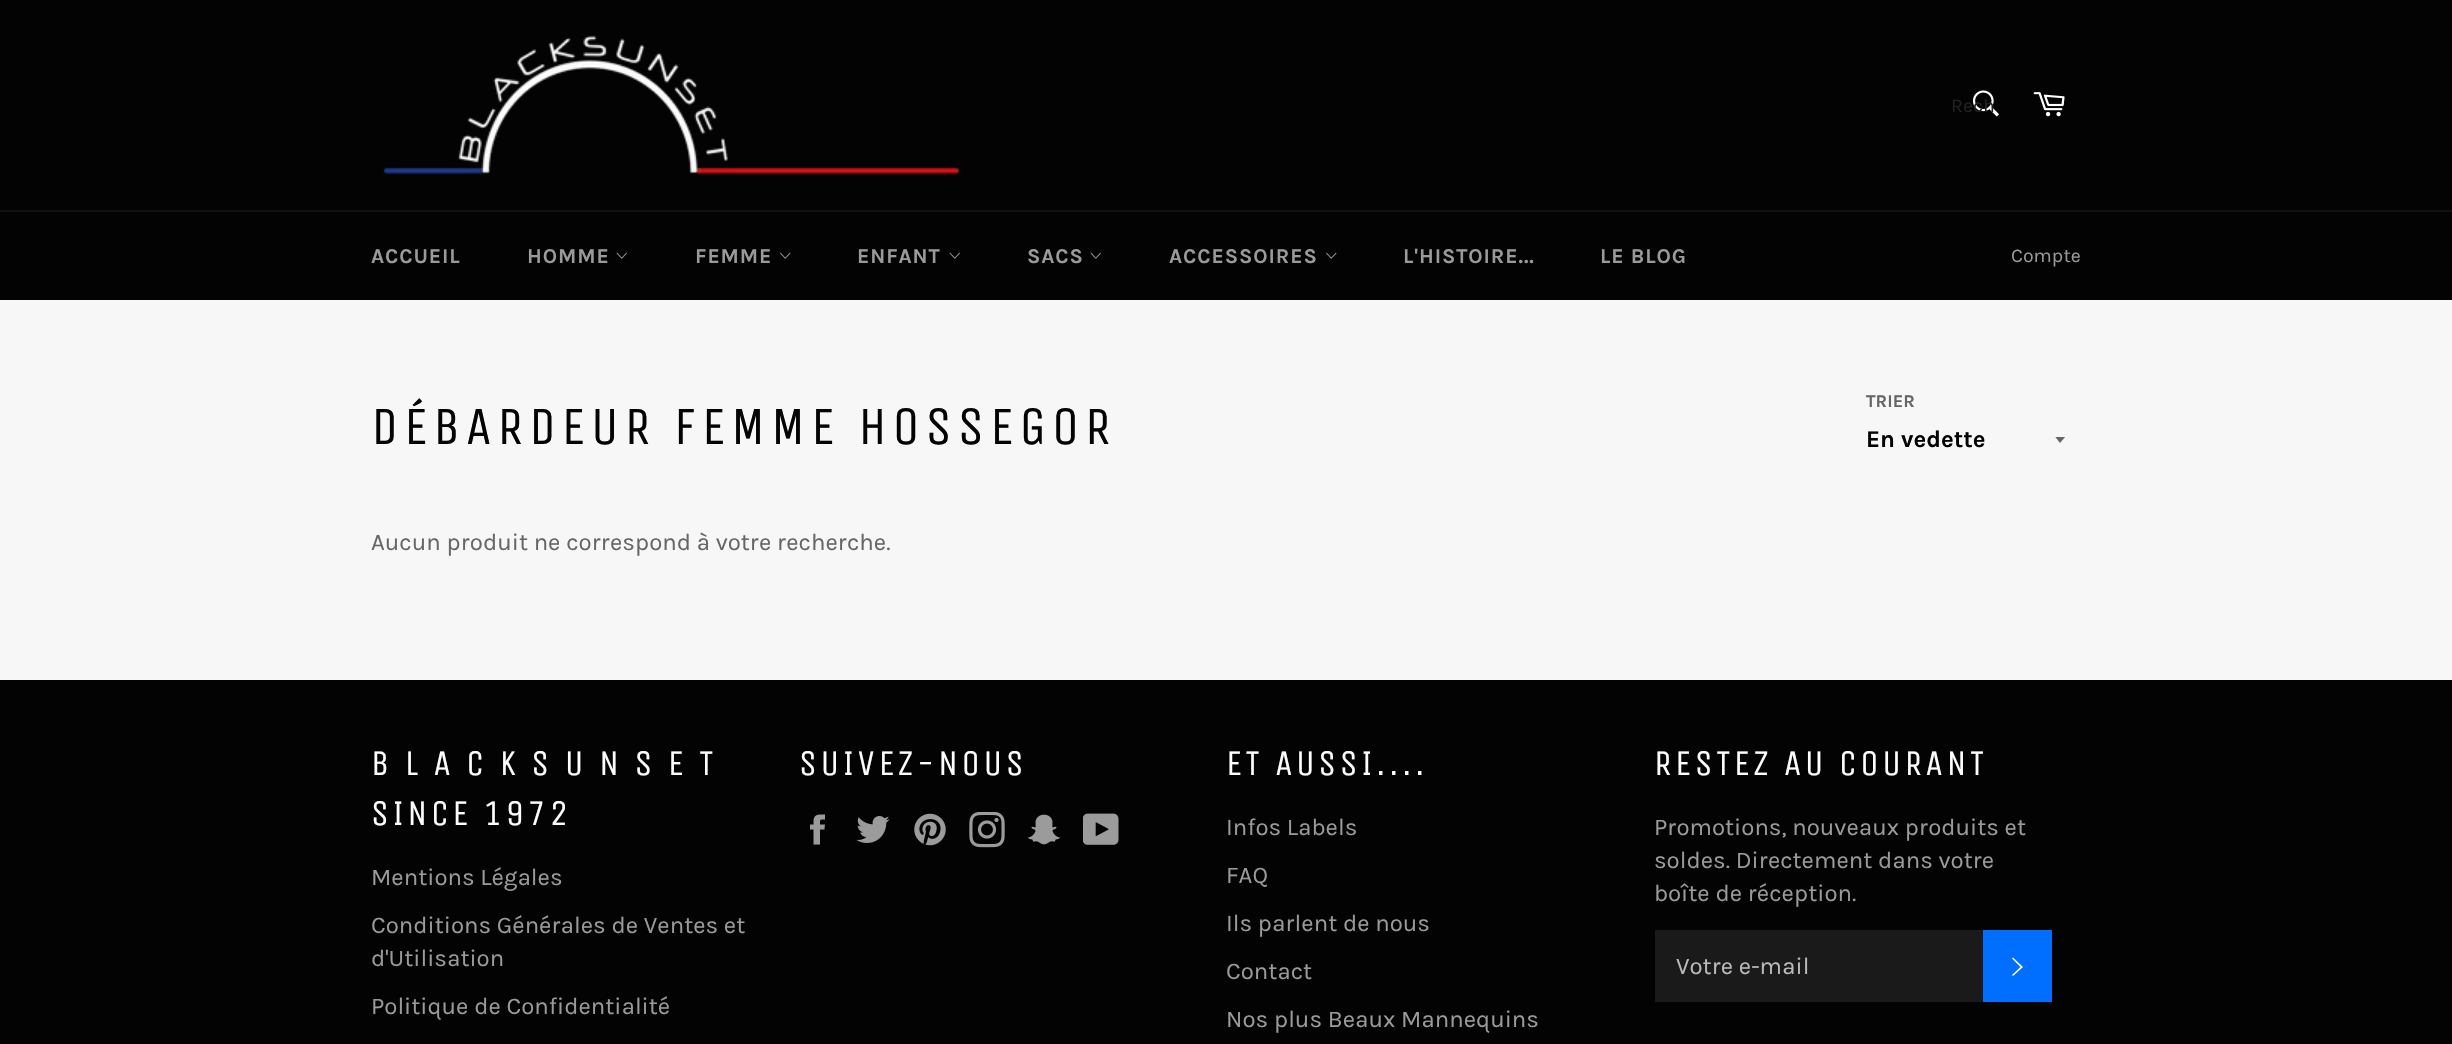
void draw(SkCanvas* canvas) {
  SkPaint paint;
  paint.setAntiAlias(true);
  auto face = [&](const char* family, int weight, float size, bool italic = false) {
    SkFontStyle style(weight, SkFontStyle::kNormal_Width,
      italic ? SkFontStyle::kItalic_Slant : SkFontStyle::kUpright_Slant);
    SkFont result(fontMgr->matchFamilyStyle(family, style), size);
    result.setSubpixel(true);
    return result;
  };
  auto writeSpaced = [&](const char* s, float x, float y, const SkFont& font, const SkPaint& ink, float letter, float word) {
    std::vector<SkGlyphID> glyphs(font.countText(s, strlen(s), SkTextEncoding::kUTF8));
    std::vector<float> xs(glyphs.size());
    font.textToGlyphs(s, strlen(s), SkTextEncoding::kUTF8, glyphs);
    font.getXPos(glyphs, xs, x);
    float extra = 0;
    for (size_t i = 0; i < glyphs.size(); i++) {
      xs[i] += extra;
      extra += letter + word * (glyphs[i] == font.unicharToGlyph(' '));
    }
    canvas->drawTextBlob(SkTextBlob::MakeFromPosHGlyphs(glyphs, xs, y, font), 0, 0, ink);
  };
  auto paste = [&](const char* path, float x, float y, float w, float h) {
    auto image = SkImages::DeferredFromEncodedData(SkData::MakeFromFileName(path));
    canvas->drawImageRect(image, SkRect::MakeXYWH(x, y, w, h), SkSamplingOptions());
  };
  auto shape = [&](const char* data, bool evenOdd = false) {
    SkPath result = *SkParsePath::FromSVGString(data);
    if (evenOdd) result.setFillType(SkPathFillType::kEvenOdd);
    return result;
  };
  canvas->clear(0xfff7f7f7);
  paint.setColor(0xff030303);
  canvas->drawRect(SkRect::MakeXYWH(0, 0, 2452, 210), paint);
  paste("img/1.png", 383, 35, 578, 140);
  paste("img/2.png", 1972, 90, 27, 27);
  paste("img/3.png", 2033, 92, 32, 25);
  canvas->drawRect(SkRect::MakeXYWH(0, 212, 2452, 88), paint);
  paint.setColor(0xff101010);
  canvas->drawRect(SkRect::MakeXYWH(0, 210, 2452, 2), paint);
  paste("img/4.png", 616, 252, 11, 7);
  paste("img/5.png", 780, 252, 11, 7);
  paste("img/4.png", 949, 252, 11, 7);
  paste("img/4.png", 1090, 252, 11, 7);
  paste("img/5.png", 1326, 252, 11, 7);
  canvas->save();
  canvas->clipRect(SkRect::MakeXYWH(2055, 437, 12, 7));
  paint.setColor(0xff666666);
  canvas->drawPath(shape("M2055 436.5L2060 443L2065.5 436.5Z"), paint);
  canvas->restore();
  paint.setColor(0xff030303);
  canvas->drawRect(SkRect::MakeXYWH(0, 680, 2452, 364), paint);
  paste("img/6.png", 810, 814, 15, 31);
  paste("img/7.png", 856, 816, 34, 27);
  paste("img/8.png", 914, 813, 32, 33);
  paste("img/9.png", 969, 812, 36, 36);
  paste("img/10.png", 1028, 814, 32, 31);
  paste("img/11.png", 1083, 813, 36, 32);
  paint.setColor(0xff1a1a1a);
  canvas->drawRect(SkRect::MakeXYWH(1655, 930, 328, 72), paint);
  paint.setColor(0xff006eff);
  canvas->drawRect(SkRect::MakeXYWH(1983, 930, 69, 72), paint);
  paint.setColor(0xffffffff);
  canvas->drawPath(shape("M2012 958.5L2013 957.5L2023 967L2013 976L2012 975L2020.5 967Z"), paint);
  auto f0 = face("Karla", 400, 19.5f);
  paint.setColor(0xff212121);
  canvas->drawString("Rech", 1951, 112, f0, paint);
  auto f1 = face("Karla", 700, 21);
  paint.setColor(0xff9a9a9a);
  {
    const struct { const char* s; float x, y; } items[] = {
      {"ACCUEIL", 371, 263},
      {"HOMME", 527, 263},
      {"FEMME", 695, 263},
      {"ENFANT", 857, 263},
      {"SACS", 1027, 263},
      {"ACCESSOIRES", 1169, 263},
      {"L'HISTOIRE...", 1403, 263},
      {"LE BLOG", 1600, 263},
    };
    for (auto [s, x, y] : items) {
      writeSpaced(s, x, y, f1, paint, 0.9f, 0);
    }
  }
  canvas->drawString("Compte", 2011, 262, f0, paint);
  auto f2 = face("Unica One", 400, 54);
  paint.setColor(0xff030303);
  writeSpaced("DÉBARDEUR FEMME HOSSEGOR", 371, 444, f2, paint, 5.4f, 0);
  auto f3 = face("Karla", 700, 18);
  paint.setColor(0xff666666);
  canvas->drawString("TRIER", 1866, 407, f3, paint);
  auto f4 = face("Karla", 700, 24);
  paint.setColor(0xff030303);
  canvas->drawString("En vedette", 1866, 447, f4, paint);
  auto f5 = face("Karla", 400, 24);
  paint.setColor(0xff666666);
  canvas->drawString("Aucun produit ne correspond à votre recherche.", 371, 550, f5, paint);
  auto f6 = face("Unica One", 400, 36);
  paint.setColor(0xffffffff);
  writeSpaced("B L A C K S U N S E T", 371, 775, f6, paint, 3.6f, 0);
  writeSpaced("SINCE 1972", 371, 825, f6, paint, 3.6f, 0);
  paint.setColor(0xff9a9a9a);
  {
    const struct { const char* s; float x, y; } items[] = {
      {"Mentions Légales", 371, 885},
      {"Conditions Générales de Ventes et", 371, 933},
      {"d'Utilisation", 371, 966},
      {"Politique de Confidentialité", 371, 1014},
    };
    for (auto [s, x, y] : items) {
      canvas->drawString(s, x, y, f5, paint);
    }
  }
  paint.setColor(0xffffffff);
  writeSpaced("SUIVEZ-NOUS", 799, 775, f6, paint, 3.6f, 0);
  writeSpaced("ET AUSSI....", 1226, 775, f6, paint, 3.6f, 0);
  paint.setColor(0xff9a9a9a);
  {
    const struct { const char* s; float x, y; } items[] = {
      {"Infos Labels", 1226, 835},
      {"FAQ", 1226, 883},
      {"Ils parlent de nous", 1226, 931},
      {"Contact", 1226, 979},
      {"Nos plus Beaux Mannequins", 1226, 1027},
    };
    for (auto [s, x, y] : items) {
      canvas->drawString(s, x, y, f5, paint);
    }
  }
  paint.setColor(0xffffffff);
  writeSpaced("RESTEZ AU COURANT", 1654, 775, f6, paint, 3.6f, 0);
  paint.setColor(0xff9a9a9a);
  {
    const struct { const char* s; float x, y; } items[] = {
      {"Promotions, nouveaux produits et", 1654, 835},
      {"soldes. Directement dans votre", 1654, 868},
      {"boîte de réception.", 1654, 901},
    };
    for (auto [s, x, y] : items) {
      canvas->drawString(s, x, y, f5, paint);
    }
  }
  paint.setColor(0xffbababa);
  canvas->drawString("Votre e-mail", 1676, 974, f5, paint);
}
